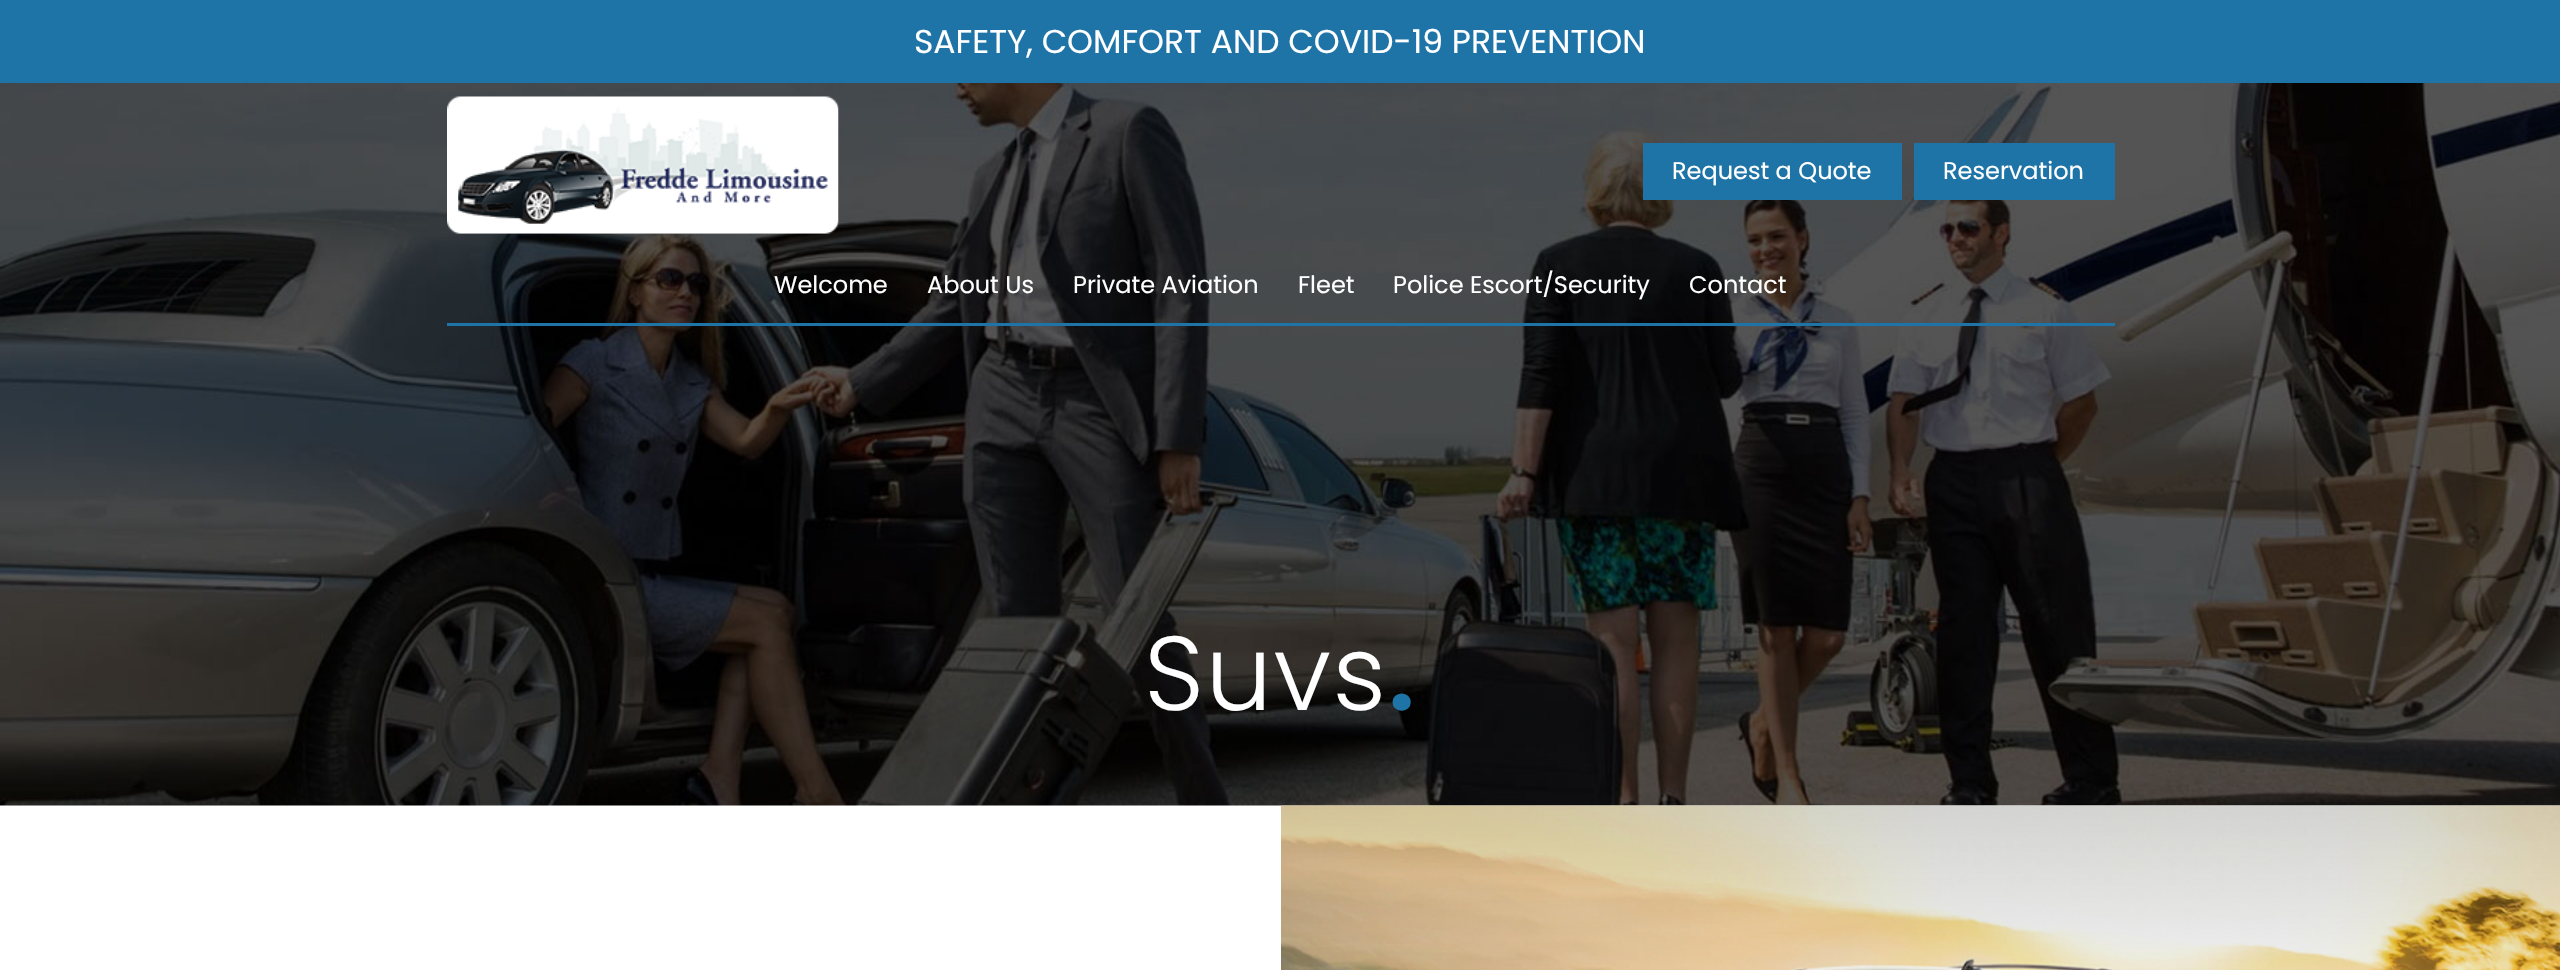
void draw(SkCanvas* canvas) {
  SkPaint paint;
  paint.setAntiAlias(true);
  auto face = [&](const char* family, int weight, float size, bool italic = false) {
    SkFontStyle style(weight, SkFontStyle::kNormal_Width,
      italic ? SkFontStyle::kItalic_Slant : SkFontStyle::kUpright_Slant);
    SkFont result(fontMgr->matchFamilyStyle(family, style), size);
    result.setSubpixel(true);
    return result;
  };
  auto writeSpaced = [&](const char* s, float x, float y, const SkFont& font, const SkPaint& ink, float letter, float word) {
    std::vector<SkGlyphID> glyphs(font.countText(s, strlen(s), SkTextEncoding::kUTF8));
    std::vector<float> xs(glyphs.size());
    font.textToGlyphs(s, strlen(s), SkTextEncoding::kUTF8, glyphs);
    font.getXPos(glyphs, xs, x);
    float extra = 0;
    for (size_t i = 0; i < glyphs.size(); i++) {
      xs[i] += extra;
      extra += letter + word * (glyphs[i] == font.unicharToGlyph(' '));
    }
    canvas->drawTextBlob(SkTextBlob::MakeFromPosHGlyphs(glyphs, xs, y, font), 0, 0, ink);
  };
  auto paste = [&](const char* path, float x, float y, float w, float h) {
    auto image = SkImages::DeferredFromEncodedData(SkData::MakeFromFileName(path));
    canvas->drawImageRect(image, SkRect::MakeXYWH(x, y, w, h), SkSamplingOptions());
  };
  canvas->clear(0xffffffff);
  paint.setColor(0xff1e74a6);
  canvas->drawRect(SkRect::MakeXYWH(0, 0, 2560, 83), paint);
  paste("img/2.png", 0, 83, 2560, 723);
  paste("img/1.png", 447, 96, 392, 138);
  {
    const struct { float x, y, w, h; SkColor color; } items[] = {
      {1643, 143, 259, 57, 0xff1e74a6},
      {1914, 143, 201, 57, 0xff1e74a6},
      {447, 323, 1668, 3, 0xff1e74a6},
    };
    for (auto [x, y, w, h, color] : items) {
      paint.setColor(color);
      canvas->drawRect(SkRect::MakeXYWH(x, y, w, h), paint);
    }
  }
  paste("img/3.png", 1281, 805, 1279, 165);
  auto f0 = face("Poppins", 400, 33);
  paint.setColor(0xffffffff);
  canvas->drawString("SAFETY, COMFORT AND COVID-19 PREVENTION", 914, 53, f0, paint);
  auto f1 = face("Poppins", 400, 24);
  {
    const struct { const char* s; float x, y; } items[] = {
      {"Request a Quote", 1672, 179},
      {"Reservation", 1943, 179},
      {"Welcome", 774, 293},
      {"About Us", 927, 293},
      {"Private Aviation", 1073, 293},
      {"Fleet", 1298, 293},
      {"Police Escort/Security", 1393, 293},
      {"Contact", 1689, 293},
    };
    for (auto [s, x, y] : items) {
      canvas->drawString(s, x, y, f1, paint);
    }
  }
  auto f2 = face("Poppins", 300, 105);
  writeSpaced("Suvs", 1144, 710, f2, paint, 1.5f, 0);
  auto f3 = face("Poppins", 600, 105);
  paint.setColor(0xff1e74a6);
  writeSpaced(".", 1388, 710, f3, paint, 1.5f, 0);
}
